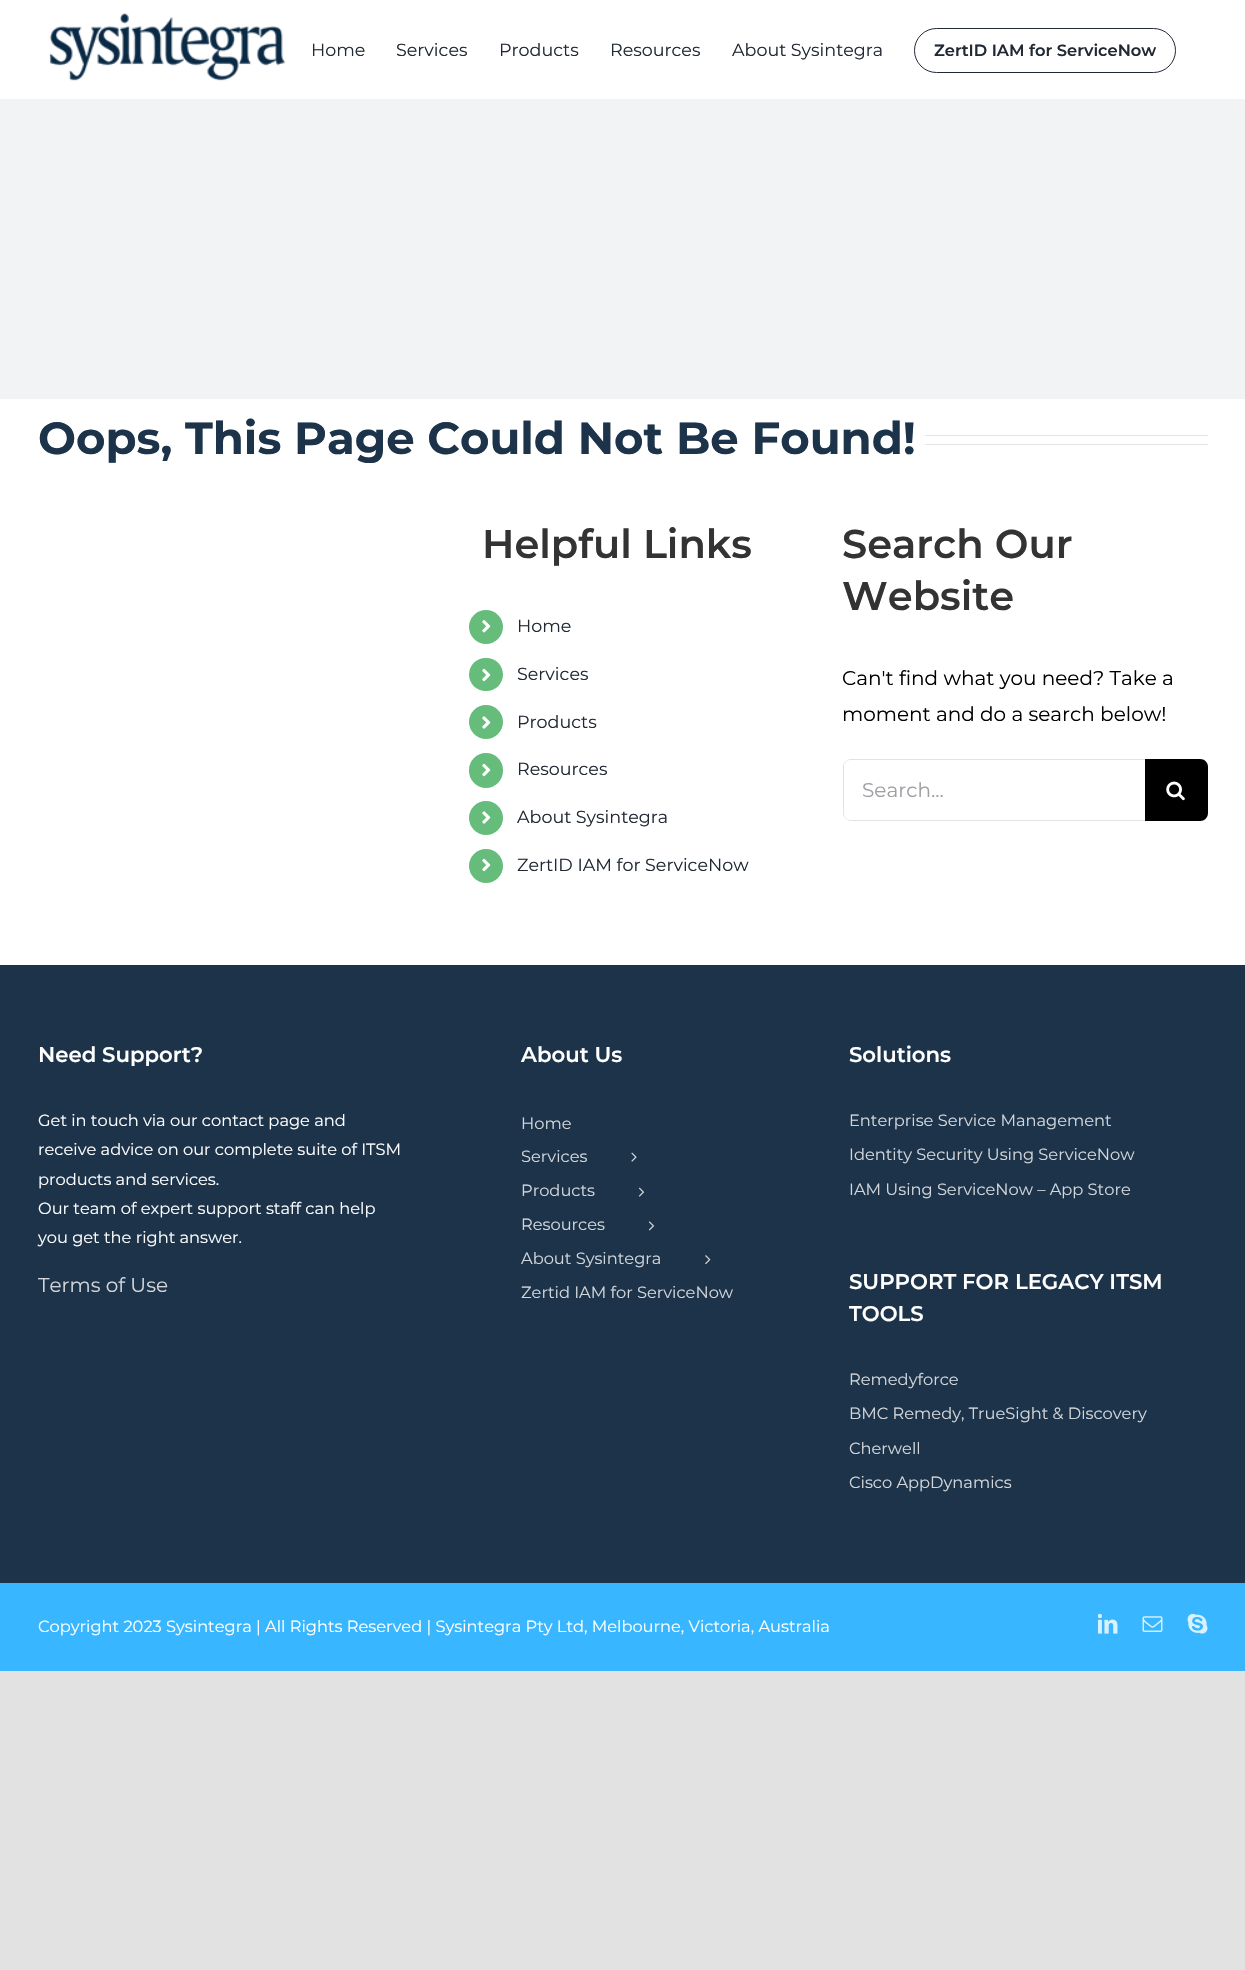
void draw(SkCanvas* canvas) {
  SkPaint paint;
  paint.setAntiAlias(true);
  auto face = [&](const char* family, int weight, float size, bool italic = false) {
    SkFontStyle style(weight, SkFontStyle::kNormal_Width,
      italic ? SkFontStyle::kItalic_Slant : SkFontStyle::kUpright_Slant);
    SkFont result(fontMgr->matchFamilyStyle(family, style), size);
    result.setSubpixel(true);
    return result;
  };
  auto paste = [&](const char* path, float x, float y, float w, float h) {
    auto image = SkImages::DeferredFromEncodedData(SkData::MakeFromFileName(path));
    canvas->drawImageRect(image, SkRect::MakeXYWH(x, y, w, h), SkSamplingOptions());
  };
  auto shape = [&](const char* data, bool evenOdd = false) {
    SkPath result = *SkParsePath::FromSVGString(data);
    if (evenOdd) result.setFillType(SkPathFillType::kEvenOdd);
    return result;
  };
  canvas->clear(0xffe2e2e2);
  paint.setColor(0xffffffff);
  canvas->drawRect(SkRect::MakeXYWH(0, 0, 1245, 965), paint);
  paste("img/1.png", 49, 13, 237, 68);
  paint.setStroke(true);
  paint.setStrokeWidth(1);
  paint.setColor(0xff212934);
  canvas->drawRoundRect(SkRect::MakeXYWH(914.5f, 28.5f, 261, 44), 22, 22, paint);
  paint.setStroke(false);
  {
    const struct { float x, y, w, h; SkColor color; } items[] = {
      {0, 99, 1245, 300, 0xfff2f3f5},
      {925, 435, 283, 1, 0xffe2e2e2},
      {925, 444, 283, 1, 0xffe2e2e2},
    };
    for (auto [x, y, w, h, color] : items) {
      paint.setColor(color);
      canvas->drawRect(SkRect::MakeXYWH(x, y, w, h), paint);
    }
  }
  paint.setColor(0xff65bc7b);
  canvas->drawCircle(486, 627, 17, paint);
  paste("img/2.png", 482, 620, 9, 13);
  canvas->drawRoundRect(SkRect::MakeXYWH(469, 658, 34, 33), 16.5f, 16.5f, paint);
  paste("img/3.png", 482, 668, 9, 14);
  canvas->drawCircle(486, 722, 17, paint);
  paste("img/4.png", 482, 716, 9, 13);
  canvas->drawRoundRect(SkRect::MakeXYWH(469, 753, 34, 35), 17, 17, paint);
  paste("img/3.png", 482, 763, 9, 14);
  canvas->drawCircle(486, 818, 17, paint);
  paste("img/4.png", 482, 811, 9, 13);
  canvas->drawCircle(486, 866, 17, paint);
  paste("img/3.png", 482, 858, 9, 14);
  paint.setColor(0xffe2e2e2);
  canvas->drawPath(shape("M850 760H1145V759H851C847 759 843 763 843 767V813C843 817 847 821 851 821H1145V820H850C847 820 844 817 844 814V766C844 763 847 760 850 760Z"), paint);
  paint.setColor(0xff000000);
  canvas->drawPath(shape("M1145 759H1200C1204.5 759 1208 762.5 1208 767V813C1208 817.5 1204.5 821 1200 821H1145Z"), paint);
  paste("img/5.png", 1166, 781, 19, 20);
  paint.setColor(0xff1c334a);
  canvas->drawRect(SkRect::MakeXYWH(0, 965, 1245, 618), paint);
  paste("img/6.png", 631, 1152, 6, 10);
  paste("img/7.png", 638, 1187, 7, 10);
  paste("img/8.png", 648, 1221, 7, 10);
  paste("img/9.png", 705, 1255, 6, 10);
  paint.setColor(0xff38b6ff);
  canvas->drawRect(SkRect::MakeXYWH(0, 1583, 1245, 88), paint);
  paste("img/10.png", 1098, 1613, 20, 21);
  paste("img/11.png", 1142, 1616, 21, 16);
  paste("img/12.png", 1187, 1613, 21, 21);
  auto f0 = face("Montserrat", 400, 17.5f);
  paint.setColor(0xff212934);
  {
    const struct { const char* s; float x, y; } items[] = {
      {"Home", 311, 56},
      {"Services", 396, 56},
      {"Products", 499, 56},
      {"Resources", 610, 56},
      {"About Sysintegra", 732, 56},
    };
    for (auto [s, x, y] : items) {
      canvas->drawString(s, x, y, f0, paint);
    }
  }
  auto f1 = face("Montserrat", 600, 16.25f);
  canvas->drawString("ZertID IAM for ServiceNow", 934, 56, f1, paint);
  auto f2 = face("Montserrat", 700, 45);
  paint.setColor(0xff1c334a);
  canvas->drawString("Oops, This Page Could Not Be Found!", 38, 454, f2, paint);
  auto f3 = face("Montserrat", 600, 40);
  paint.setColor(0xff333333);
  canvas->drawString("Helpful Links", 482, 558, f3, paint);
  paint.setColor(0xff212934);
  {
    const struct { const char* s; float x, y; } items[] = {
      {"Home", 517, 632},
      {"Services", 517, 680},
      {"Products", 517, 728},
      {"Resources", 517, 775},
      {"About Sysintegra", 517, 823},
      {"ZertID IAM for ServiceNow", 517, 871},
    };
    for (auto [s, x, y] : items) {
      canvas->drawString(s, x, y, f0, paint);
    }
  }
  paint.setColor(0xff333333);
  canvas->drawString("Search Our", 842, 558, f3, paint);
  canvas->drawString("Website", 842, 610, f3, paint);
  auto f4 = face("Montserrat", 400, 20);
  paint.setColor(0xff000000);
  canvas->drawString("Can't find what you need? Take a", 842, 685, f4, paint);
  canvas->drawString("moment and do a search below!", 842, 721, f4, paint);
  paint.setColor(0xff9ea0a4);
  canvas->drawString("Search...", 862, 797, f4, paint);
  auto f5 = face("Montserrat", 600, 21.25f);
  paint.setColor(0xffffffff);
  canvas->drawString("Need Support?", 38, 1062, f5, paint);
  auto f6 = face("Montserrat", 400, 16.25f);
  {
    const struct { const char* s; float x, y; } items[] = {
      {"Get in touch via our contact page and", 38, 1126},
      {"receive advice on our complete suite of ITSM", 38, 1155},
      {"products and services.", 38, 1185},
      {"Our team of expert support staff can help", 38, 1214},
      {"you get the right answer.", 38, 1243},
    };
    for (auto [s, x, y] : items) {
      canvas->drawString(s, x, y, f6, paint);
    }
  }
  paint.setColor(0xffd2d6db);
  canvas->drawString("Terms of Use", 38, 1292, f4, paint);
  paint.setColor(0xffffffff);
  canvas->drawString("About Us", 521, 1062, f5, paint);
  paint.setColor(0xffd2d6db);
  {
    const struct { const char* s; float x, y; } items[] = {
      {"Home", 521, 1129},
      {"Services", 521, 1162},
      {"Products", 521, 1196},
      {"Resources", 521, 1230},
      {"About Sysintegra", 521, 1264},
      {"Zertid IAM for ServiceNow", 521, 1298},
    };
    for (auto [s, x, y] : items) {
      canvas->drawString(s, x, y, f6, paint);
    }
  }
  paint.setColor(0xffffffff);
  canvas->drawString("Solutions", 849, 1062, f5, paint);
  paint.setColor(0xffd2d6db);
  {
    const struct { const char* s; float x, y; } items[] = {
      {"Enterprise Service Management", 849, 1126},
      {"Identity Security Using ServiceNow", 849, 1160},
      {"IAM Using ServiceNow – App Store", 849, 1195},
    };
    for (auto [s, x, y] : items) {
      canvas->drawString(s, x, y, f6, paint);
    }
  }
  paint.setColor(0xffffffff);
  canvas->drawString("SUPPORT FOR LEGACY ITSM", 849, 1289, f5, paint);
  canvas->drawString("TOOLS", 849, 1321, f5, paint);
  paint.setColor(0xffd2d6db);
  {
    const struct { const char* s; float x, y; } items[] = {
      {"Remedyforce", 849, 1385},
      {"BMC Remedy, TrueSight & Discovery", 849, 1419},
      {"Cherwell", 849, 1454},
      {"Cisco AppDynamics", 849, 1488},
    };
    for (auto [s, x, y] : items) {
      canvas->drawString(s, x, y, f6, paint);
    }
  }
  paint.setColor(0xffffffff);
  canvas->drawString("Copyright 2023 Sysintegra | All Rights Reserved | Sysintegra Pty Ltd, Melbourne, Victoria, Australia", 38, 1632, f6, paint);
}
